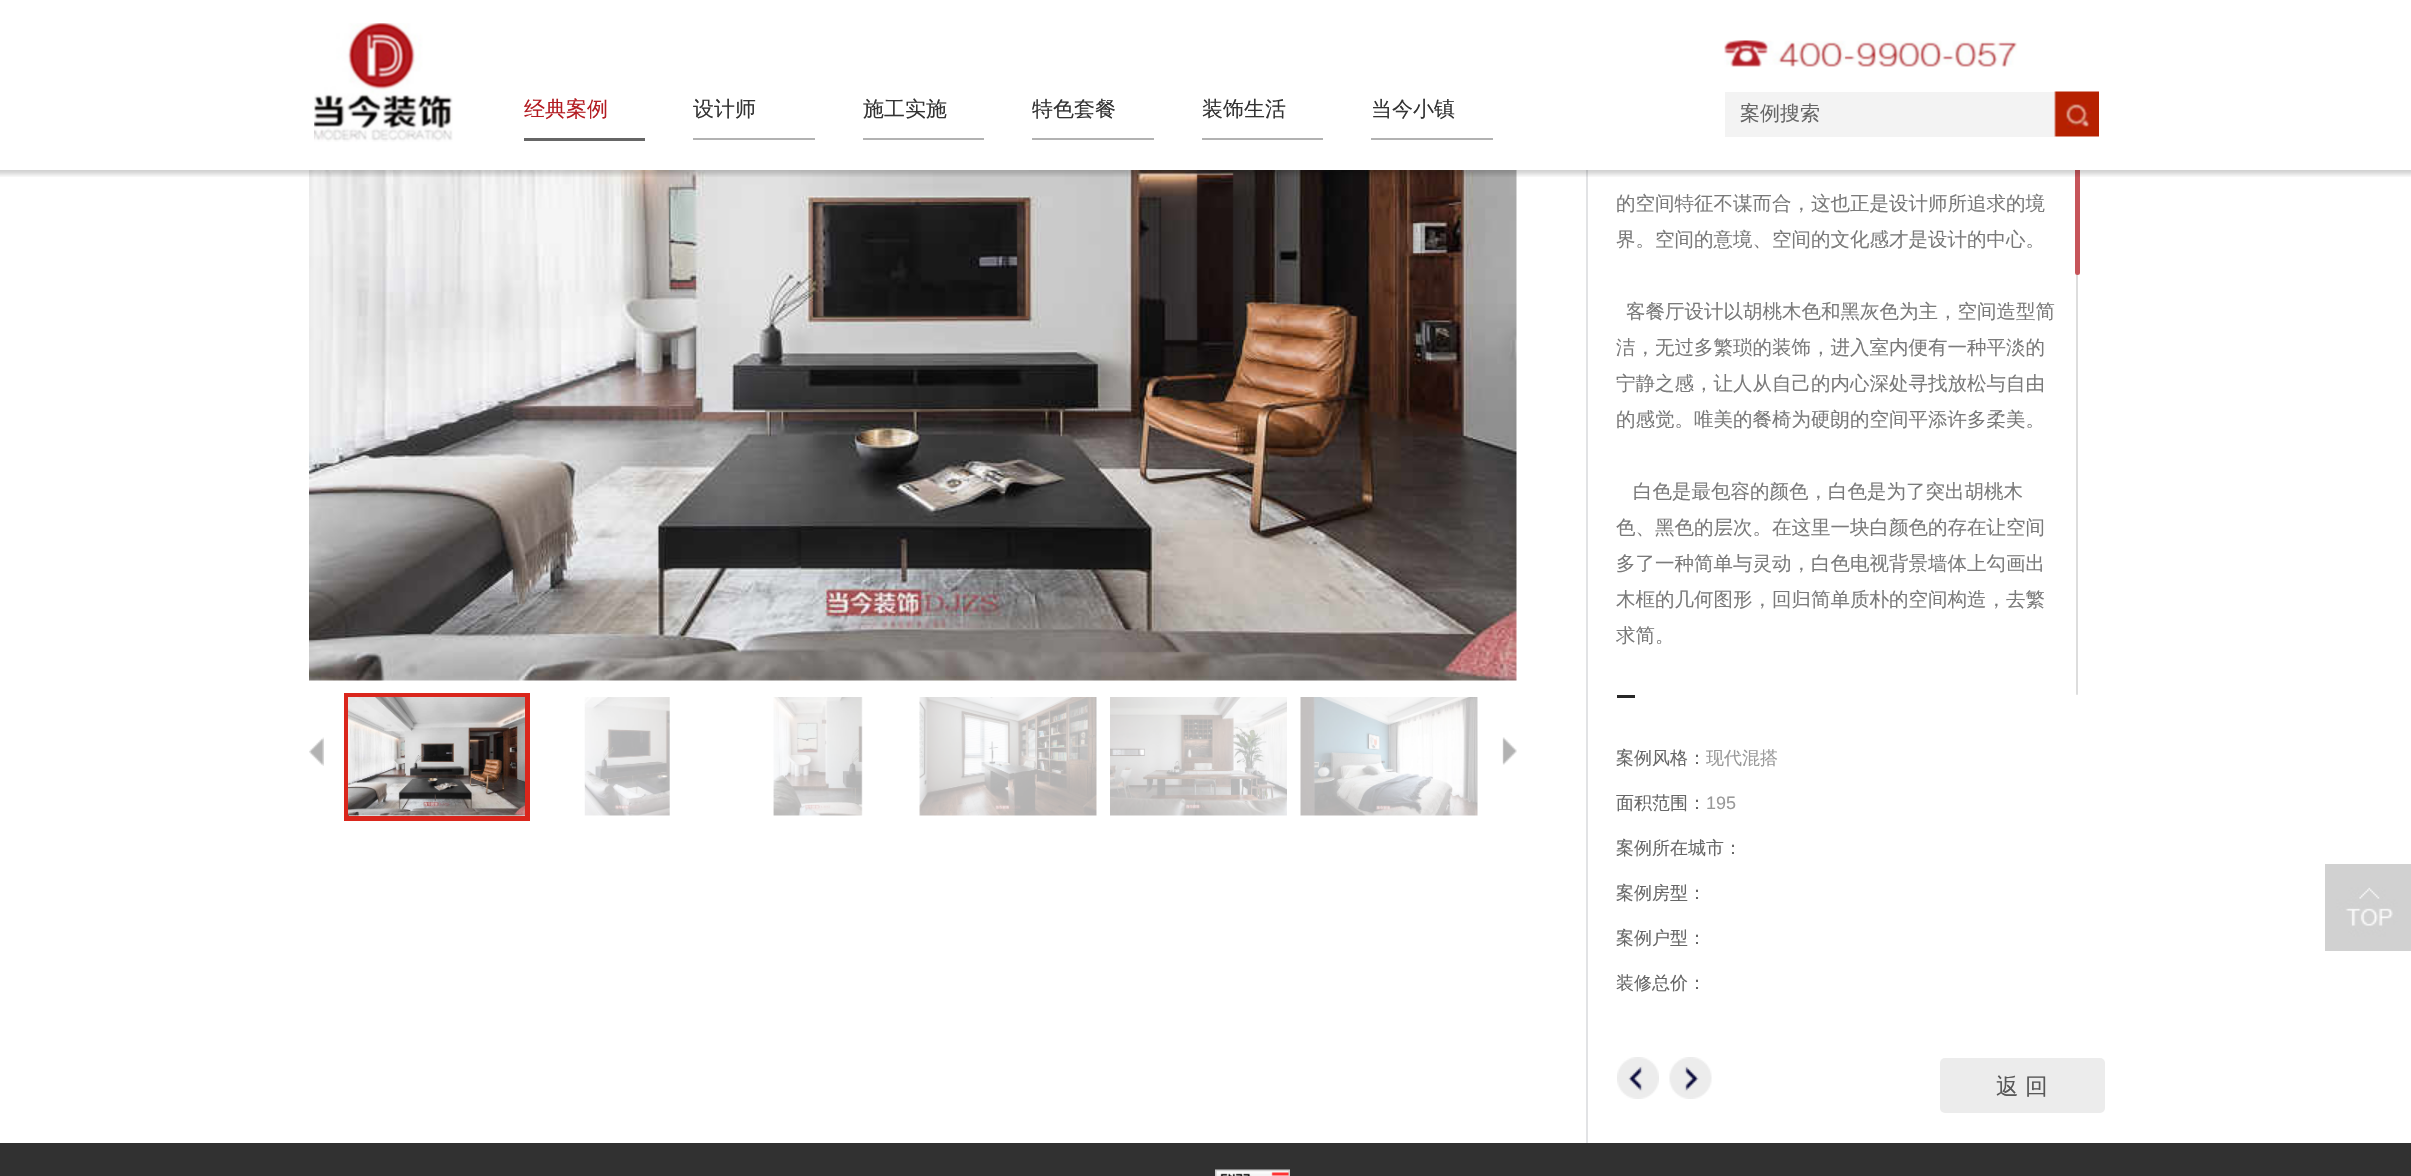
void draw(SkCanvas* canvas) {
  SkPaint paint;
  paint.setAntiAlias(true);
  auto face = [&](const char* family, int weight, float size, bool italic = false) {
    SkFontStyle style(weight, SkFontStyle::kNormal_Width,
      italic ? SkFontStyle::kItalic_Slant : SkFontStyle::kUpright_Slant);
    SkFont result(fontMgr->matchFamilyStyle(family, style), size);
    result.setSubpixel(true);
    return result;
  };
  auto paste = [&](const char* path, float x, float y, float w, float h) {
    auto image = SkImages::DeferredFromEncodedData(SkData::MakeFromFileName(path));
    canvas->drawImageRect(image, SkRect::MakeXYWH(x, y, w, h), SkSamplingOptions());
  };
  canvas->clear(0xffffffff);
  paint.setColor(0xffdddddd);
  canvas->drawRoundRect(SkRect::MakeXYWH(2076, -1, 2, 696), 1, 1, paint);
  paint.setColor(0xffc6555a);
  canvas->drawRoundRect(SkRect::MakeXYWH(2075, -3, 5, 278), 2.5f, 2.5f, paint);
  paint.setColor(0xffffffff);
  canvas->drawRect(SkRect::MakeXYWH(2075, 0, 5, 170), paint);
  paste("img/1.png", 314, 23, 139, 119);
  {
    const struct { float x, y, w, h; SkColor color; } items[] = {
      {524, 138, 121, 3, 0xff666666},
      {693, 138, 122, 2, 0xffb2b2b2},
      {863, 138, 121, 2, 0xffb2b2b2},
      {1032, 138, 122, 2, 0xffb2b2b2},
      {1202, 138, 121, 2, 0xffb2b2b2},
      {1371, 138, 122, 2, 0xffb2b2b2},
    };
    for (auto [x, y, w, h, color] : items) {
      paint.setColor(color);
      canvas->drawRect(SkRect::MakeXYWH(x, y, w, h), paint);
    }
  }
  paste("img/2.png", 1724, 40, 294, 27);
  paint.setColor(0xfff3f3f3);
  canvas->drawRect(SkRect::MakeXYWH(1725, 92, 330, 45), paint);
  paste("img/3.png", 2054, 91, 45, 46);
  paste("img/5.png", 309, 170, 1208, 511);
  paint.setColor(0xffe2e3e5);
  canvas->drawRect(SkRect::MakeXYWH(1586, 170, 2, 973), paint);
  paste("img/4.png", 0, 170, 2411, 7);
  paste("img/6.png", 309, 737, 15, 29);
  paint.setStroke(true);
  paint.setStrokeWidth(5);
  paint.setColor(0xffda261c);
  canvas->drawRect(SkRect::MakeXYWH(346.5f, 695.5f, 181, 123), paint);
  paste("img/7.png", 348, 697, 177, 119);
  paste("img/8.png", 584, 697, 86, 119);
  paste("img/9.png", 773, 697, 90, 119);
  paste("img/10.png", 919, 697, 178, 119);
  paste("img/11.png", 1110, 697, 177, 119);
  paste("img/12.png", 1300, 697, 178, 119);
  paste("img/13.png", 1502, 737, 15, 28);
  paint.setStroke(false);
  paint.setColor(0xff282828);
  canvas->drawRect(SkRect::MakeXYWH(1617, 695, 18, 3), paint);
  paste("img/14.png", 1617, 1057, 42, 42);
  paste("img/15.png", 1669, 1057, 43, 42);
  paint.setColor(0xffececec);
  canvas->drawRoundRect(SkRect::MakeXYWH(1940, 1058, 165, 55), 5, 5, paint);
  paste("img/16.png", 2325, 864, 86, 87);
  paint.setColor(0xff313131);
  canvas->drawRect(SkRect::MakeXYWH(0, 1143, 2411, 33), paint);
  paste("img/17.png", 1215, 1169, 75, 7);
  auto f0 = face("WenQuanYi Zen Hei", 500, 21);
  paint.setColor(0xffb31c22);
  canvas->drawString("经典案例", 524, 116, f0, paint);
  paint.setColor(0xff333333);
  {
    const struct { const char* s; float x, y; } items[] = {
      {"设计师", 693, 116},
      {"施工实施", 863, 116},
      {"特色套餐", 1032, 116},
      {"装饰生活", 1202, 116},
      {"当今小镇", 1371, 116},
    };
    for (auto [s, x, y] : items) {
      canvas->drawString(s, x, y, f0, paint);
    }
  }
  auto f1 = face("WenQuanYi Zen Hei", 500, 20);
  paint.setColor(0xff666666);
  canvas->drawString("案例搜索", 1740, 120, f1, paint);
  auto f2 = face("WenQuanYi Zen Hei", 500, 19.5f);
  paint.setColor(0xff7a7a7a);
  {
    const struct { const char* s; float x, y; } items[] = {
      {"的空间特征不谋而合，这也正是设计师所追求的境", 1616, 210},
      {"界。空间的意境、空间的文化感才是设计的中心。", 1616, 246},
      {"客餐厅设计以胡桃木色和黑灰色为主，空间造型简", 1626, 318},
      {"洁，无过多繁琐的装饰，进入室内便有一种平淡的", 1616, 354},
      {"宁静之感，让人从自己的内心深处寻找放松与自由", 1616, 390},
      {"的感觉。唯美的餐椅为硬朗的空间平添许多柔美。", 1616, 426},
      {"白色是最包容的颜色，白色是为了突出胡桃木", 1633, 498},
      {"色、黑色的层次。在这里一块白颜色的存在让空间", 1616, 534},
      {"多了一种简单与灵动，白色电视背景墙体上勾画出", 1616, 570},
      {"木框的几何图形，回归简单质朴的空间构造，去繁", 1616, 606},
      {"求简。", 1616, 642},
    };
    for (auto [s, x, y] : items) {
      canvas->drawString(s, x, y, f2, paint);
    }
  }
  auto f3 = face("WenQuanYi Zen Hei", 500, 18);
  paint.setColor(0xff666666);
  canvas->drawString("案例风格：", 1616, 764, f3, paint);
  paint.setColor(0xff999999);
  canvas->drawString("现代混搭", 1706, 764, f3, paint);
  paint.setColor(0xff666666);
  canvas->drawString("面积范围：", 1616, 809, f3, paint);
  auto f4 = face("Liberation Sans", 400, 18);
  paint.setColor(0xff999999);
  canvas->drawString("195", 1706, 809, f4, paint);
  paint.setColor(0xff666666);
  {
    const struct { const char* s; float x, y; } items[] = {
      {"案例所在城市：", 1616, 854},
      {"案例房型：", 1616, 899},
      {"案例户型：", 1616, 944},
      {"装修总价：", 1616, 989},
    };
    for (auto [s, x, y] : items) {
      canvas->drawString(s, x, y, f3, paint);
    }
  }
  auto f5 = face("WenQuanYi Zen Hei", 500, 22.5f);
  paint.setColor(0xff585858);
  canvas->drawString("返 回", 1996, 1094, f5, paint);
}
